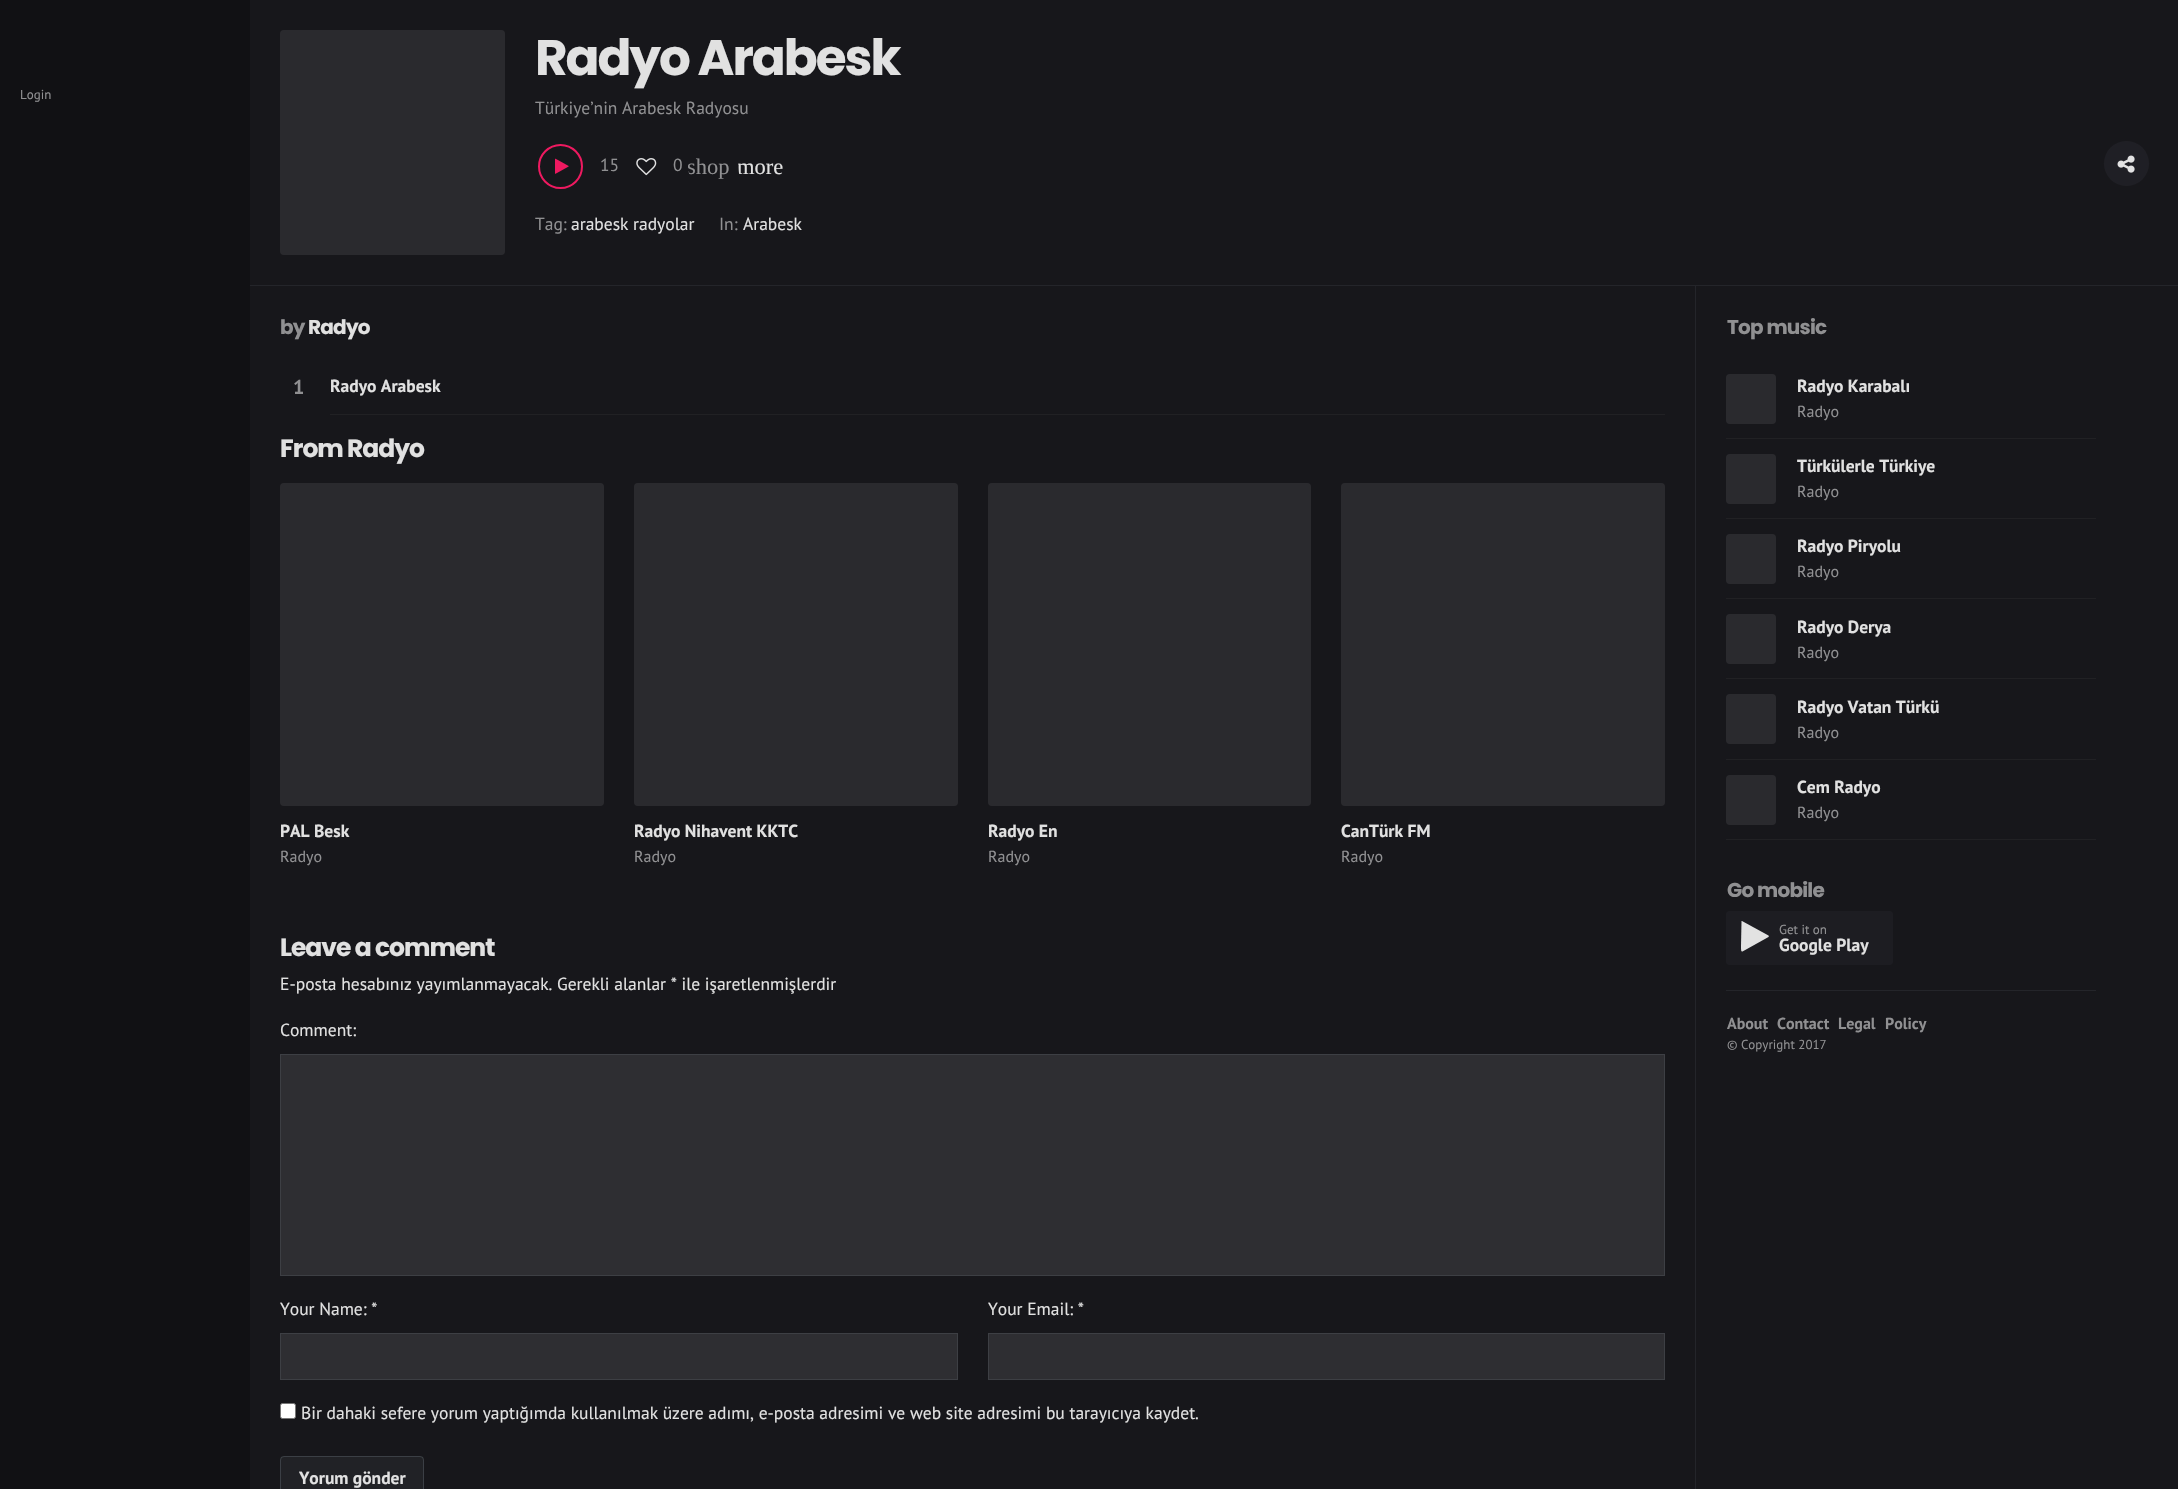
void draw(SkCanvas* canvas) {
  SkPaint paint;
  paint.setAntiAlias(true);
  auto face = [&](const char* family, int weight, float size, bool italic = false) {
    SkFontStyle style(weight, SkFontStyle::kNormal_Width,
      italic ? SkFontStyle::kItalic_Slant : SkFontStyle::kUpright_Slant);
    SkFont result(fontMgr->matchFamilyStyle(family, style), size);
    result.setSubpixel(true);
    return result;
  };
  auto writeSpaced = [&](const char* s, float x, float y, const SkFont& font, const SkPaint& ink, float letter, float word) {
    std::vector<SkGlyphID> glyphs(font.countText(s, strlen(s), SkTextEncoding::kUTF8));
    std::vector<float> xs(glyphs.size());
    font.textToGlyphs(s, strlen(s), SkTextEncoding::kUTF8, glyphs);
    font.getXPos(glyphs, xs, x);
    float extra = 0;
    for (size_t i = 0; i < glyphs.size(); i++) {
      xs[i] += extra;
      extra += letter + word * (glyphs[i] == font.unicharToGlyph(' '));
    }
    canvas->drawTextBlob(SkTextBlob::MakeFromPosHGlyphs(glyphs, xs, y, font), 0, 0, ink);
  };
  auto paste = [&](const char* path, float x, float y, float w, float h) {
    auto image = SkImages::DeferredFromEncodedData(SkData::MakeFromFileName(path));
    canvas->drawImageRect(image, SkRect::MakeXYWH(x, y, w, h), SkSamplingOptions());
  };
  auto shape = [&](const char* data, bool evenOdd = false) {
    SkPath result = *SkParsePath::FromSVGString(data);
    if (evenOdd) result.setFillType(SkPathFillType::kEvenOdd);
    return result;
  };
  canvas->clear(0xff111114);
  paint.setColor(0xff17171b);
  canvas->drawRect(SkRect::MakeXYWH(250, 0, 1928, 1489), paint);
  paint.setColor(0xff24252a);
  canvas->drawRect(SkRect::MakeXYWH(250, 285, 1928, 1), paint);
  paint.setColor(0xff2a2a2e);
  canvas->drawRoundRect(SkRect::MakeXYWH(280, 30, 225, 225), 4, 4, paint);
  paint.setStroke(true);
  paint.setStrokeWidth(2);
  paint.setColor(0xffef1960);
  canvas->drawCircle(560.5f, 166.5f, 21.5f, paint);
  paste("img/1.png", 555, 158, 14, 16);
  paste("img/2.png", 636, 158, 21, 18);
  paint.setStroke(false);
  paint.setColor(0xff1f1f25);
  canvas->drawCircle(2126.5f, 163.5f, 22.5f, paint);
  paste("img/3.png", 2117, 155, 18, 18);
  paint.setColor(0xff24252a);
  canvas->drawRect(SkRect::MakeXYWH(1695, 286, 1, 1203), paint);
  paint.setColor(0xff212124);
  canvas->drawRect(SkRect::MakeXYWH(330, 414, 1335, 1), paint);
  paint.setColor(0xff2a2a2e);
  canvas->drawRoundRect(SkRect::MakeXYWH(280, 483, 324, 323), 4, 4, paint);
  canvas->drawRoundRect(SkRect::MakeXYWH(634, 483, 324, 323), 4, 4, paint);
  canvas->drawRoundRect(SkRect::MakeXYWH(988, 483, 323, 323), 4, 4, paint);
  canvas->drawRoundRect(SkRect::MakeXYWH(1341, 483, 324, 323), 4, 4, paint);
  paint.setColor(0xff2e2e32);
  canvas->drawRect(SkRect::MakeXYWH(280.5f, 1054.5f, 1384, 221), paint);
  paint.setStroke(true);
  paint.setStrokeWidth(1);
  paint.setColor(0xff3d3f44);
  canvas->drawRect(SkRect::MakeXYWH(280.5f, 1054.5f, 1384, 221), paint);
  paint.setStroke(false);
  paint.setColor(0xff2e2e32);
  canvas->drawRect(SkRect::MakeXYWH(280.5f, 1333.5f, 677, 46), paint);
  paint.setStroke(true);
  paint.setColor(0xff3d3f44);
  canvas->drawRect(SkRect::MakeXYWH(280.5f, 1333.5f, 677, 46), paint);
  paint.setStroke(false);
  paint.setColor(0xff2e2e32);
  canvas->drawRect(SkRect::MakeXYWH(988.5f, 1333.5f, 676, 46), paint);
  paint.setStroke(true);
  paint.setColor(0xff3d3f44);
  canvas->drawRect(SkRect::MakeXYWH(988.5f, 1333.5f, 676, 46), paint);
  paint.setStroke(false);
  paint.setColor(0xffffffff);
  canvas->drawRoundRect(SkRect::MakeXYWH(280.5f, 1403.5f, 15, 15), 2, 2, paint);
  paint.setStroke(true);
  paint.setColor(0xff767676);
  canvas->drawRoundRect(SkRect::MakeXYWH(280.5f, 1403.5f, 15, 15), 2, 2, paint);
  paint.setStroke(false);
  paint.setColor(0xff212226);
  canvas->drawRoundRect(SkRect::MakeXYWH(280, 1456, 144, 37), 4, 4, paint);
  paint.setStroke(true);
  paint.setColor(0x4d78828c);
  canvas->drawRoundRect(SkRect::MakeXYWH(280.5f, 1456.5f, 143, 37), 3.5f, 3.5f, paint);
  paint.setStroke(false);
  paint.setColor(0xff2a2a2e);
  canvas->drawRoundRect(SkRect::MakeXYWH(1726, 374, 50, 50), 4, 4, paint);
  paint.setColor(0xff212124);
  canvas->drawRect(SkRect::MakeXYWH(1726, 438, 370, 1), paint);
  paint.setColor(0xff2a2a2e);
  canvas->drawRoundRect(SkRect::MakeXYWH(1726, 454, 50, 50), 4, 4, paint);
  paint.setColor(0xff212124);
  canvas->drawRect(SkRect::MakeXYWH(1726, 518, 370, 1), paint);
  paint.setColor(0xff2a2a2e);
  canvas->drawRoundRect(SkRect::MakeXYWH(1726, 534, 50, 50), 4, 4, paint);
  paint.setColor(0xff212124);
  canvas->drawRect(SkRect::MakeXYWH(1726, 598, 370, 1), paint);
  paint.setColor(0xff2a2a2e);
  canvas->drawRoundRect(SkRect::MakeXYWH(1726, 614, 50, 50), 4, 4, paint);
  paint.setColor(0xff212124);
  canvas->drawRect(SkRect::MakeXYWH(1726, 678, 370, 1), paint);
  paint.setColor(0xff2a2a2e);
  canvas->drawRoundRect(SkRect::MakeXYWH(1726, 694, 50, 50), 4, 4, paint);
  paint.setColor(0xff212124);
  canvas->drawRect(SkRect::MakeXYWH(1726, 759, 370, 1), paint);
  paint.setColor(0xff2a2a2e);
  canvas->drawRoundRect(SkRect::MakeXYWH(1726, 775, 50, 50), 4, 4, paint);
  paint.setColor(0xff212124);
  canvas->drawRect(SkRect::MakeXYWH(1726, 839, 370, 1), paint);
  paint.setColor(0xff1d1d22);
  canvas->drawRoundRect(SkRect::MakeXYWH(1726, 911, 167, 54), 4, 4, paint);
  paint.setColor(0xffe2e2e2);
  canvas->drawPath(shape("M1768.5 937C1769 936.5 1769 936 1768.5 935.5L1742 921L1741.5 921.5L1741 946C1741 950 1741 952 1742.5 951.5Z"), paint);
  paint.setColor(0xff24252a);
  canvas->drawRect(SkRect::MakeXYWH(1726, 990, 370, 1), paint);
  auto f0 = face("PT Sans", 400, 13);
  paint.setColor(0xff909092);
  canvas->drawString("Login", 20, 99, f0, paint);
  auto f1 = face("Poppins", 700, 50);
  paint.setColor(0xffe1e1e1);
  writeSpaced("Radyo Arabesk", 535, 75, f1, paint, -2, 0);
  auto f2 = face("PT Sans", 400, 17.5f);
  paint.setColor(0xff909092);
  {
    const struct { const char* s; float x, y; } items[] = {
      {"Türkiye’nin Arabesk Radyosu", 535, 114},
      {"15", 600, 171},
      {"0", 673, 171},
    };
    for (auto [s, x, y] : items) {
      canvas->drawString(s, x, y, f2, paint);
    }
  }
  canvas->save();
  canvas->clipPath(shape("M710.5 144C723 144 733 154 733 166.5C733 179 723 189 710.5 189C698 189 688 179 688 166.5C688 154 698 144 710.5 144Z"), true);
  auto f3 = face("Liberation Serif", 400, 22.5f);
  canvas->drawString("shop", 687, 174, f3, paint);
  canvas->restore();
  canvas->save();
  canvas->clipPath(shape("M760.5 144C773 144 783 154 783 166.5C783 179 773 189 760.5 189C748 189 738 179 738 166.5C738 154 748 144 760.5 144Z"), true);
  paint.setColor(0xffe1e1e1);
  canvas->drawString("more", 737, 174, f3, paint);
  canvas->restore();
  paint.setColor(0xff909092);
  canvas->drawString("Tag:", 535, 230, f2, paint);
  paint.setColor(0xffe1e1e1);
  canvas->drawString("arabesk radyolar", 571, 230, f2, paint);
  paint.setColor(0xff909092);
  canvas->drawString("In:", 719, 230, f2, paint);
  paint.setColor(0xffe1e1e1);
  canvas->drawString("Arabesk", 743, 230, f2, paint);
  auto f4 = face("Poppins", 700, 20);
  paint.setColor(0xff909092);
  writeSpaced("by", 280, 334, f4, paint, -0.75f, 0);
  paint.setColor(0xffe1e1e1);
  writeSpaced("Radyo", 308, 334, f4, paint, -0.75f, 0);
  auto f5 = face("PT Sans", 700, 20);
  paint.setColor(0xff909092);
  canvas->drawString("1", 293, 394, f5, paint);
  auto f6 = face("PT Sans", 700, 17.5f);
  paint.setColor(0xffe1e1e1);
  canvas->drawString("Radyo Arabesk", 330, 392, f6, paint);
  auto f7 = face("Poppins", 700, 25);
  writeSpaced("From Radyo", 280, 457, f7, paint, -1, 0);
  canvas->drawString("PAL Besk", 280, 837, f6, paint);
  auto f8 = face("PT Sans", 400, 16);
  paint.setColor(0xff909092);
  canvas->drawString("Radyo", 280, 862, f8, paint);
  paint.setColor(0xffe1e1e1);
  canvas->drawString("Radyo Nihavent KKTC", 634, 837, f6, paint);
  paint.setColor(0xff909092);
  canvas->drawString("Radyo", 634, 862, f8, paint);
  paint.setColor(0xffe1e1e1);
  canvas->drawString("Radyo En", 988, 837, f6, paint);
  paint.setColor(0xff909092);
  canvas->drawString("Radyo", 988, 862, f8, paint);
  paint.setColor(0xffe1e1e1);
  canvas->drawString("CanTürk FM", 1341, 837, f6, paint);
  paint.setColor(0xff909092);
  canvas->drawString("Radyo", 1341, 862, f8, paint);
  paint.setColor(0xffe1e1e1);
  writeSpaced("Leave a comment", 280, 956, f7, paint, -1, 0);
  {
    const struct { const char* s; float x, y; } items[] = {
      {"E-posta hesabınız yayımlanmayacak. Gerekli alanlar * ile işaretlenmişlerdir", 280, 990},
      {"Comment:", 280, 1036},
      {"Your Name: *", 280, 1315},
      {"Your Email: *", 988, 1315},
      {"Bir dahaki sefere yorum yaptığımda kullanılmak üzere adımı, e-posta adresimi ve web site adresimi bu tarayıcıya kaydet.", 301, 1419},
    };
    for (auto [s, x, y] : items) {
      canvas->drawString(s, x, y, f2, paint);
    }
  }
  canvas->drawString("Yorum gönder", 299, 1484, f6, paint);
  paint.setColor(0xff909092);
  writeSpaced("Top music", 1727, 334, f4, paint, -0.75f, 0);
  paint.setColor(0xffe1e1e1);
  canvas->drawString("Radyo Karabalı", 1797, 392, f6, paint);
  paint.setColor(0xff909092);
  canvas->drawString("Radyo", 1797, 417, f8, paint);
  paint.setColor(0xffe1e1e1);
  canvas->drawString("Türkülerle Türkiye", 1797, 472, f6, paint);
  paint.setColor(0xff909092);
  canvas->drawString("Radyo", 1797, 497, f8, paint);
  paint.setColor(0xffe1e1e1);
  canvas->drawString("Radyo Piryolu", 1797, 552, f6, paint);
  paint.setColor(0xff909092);
  canvas->drawString("Radyo", 1797, 577, f8, paint);
  paint.setColor(0xffe1e1e1);
  canvas->drawString("Radyo Derya", 1797, 633, f6, paint);
  paint.setColor(0xff909092);
  canvas->drawString("Radyo", 1797, 658, f8, paint);
  paint.setColor(0xffe1e1e1);
  canvas->drawString("Radyo Vatan Türkü", 1797, 713, f6, paint);
  paint.setColor(0xff909092);
  canvas->drawString("Radyo", 1797, 738, f8, paint);
  paint.setColor(0xffe1e1e1);
  canvas->drawString("Cem Radyo", 1797, 793, f6, paint);
  paint.setColor(0xff909092);
  canvas->drawString("Radyo", 1797, 818, f8, paint);
  writeSpaced("Go mobile", 1727, 897, f4, paint, -0.75f, 0);
  canvas->drawString("Get it on", 1779, 934, f0, paint);
  paint.setColor(0xffe1e1e1);
  canvas->drawString("Google Play", 1779, 951, f6, paint);
  auto f9 = face("PT Sans", 700, 16);
  paint.setColor(0xff909092);
  {
    const struct { const char* s; float x, y; } items[] = {
      {"About", 1727, 1029},
      {"Contact", 1777, 1029},
      {"Legal", 1838, 1029},
      {"Policy", 1885, 1029},
    };
    for (auto [s, x, y] : items) {
      canvas->drawString(s, x, y, f9, paint);
    }
  }
  canvas->drawString("© Copyright 2017", 1727, 1049, f0, paint);
}
